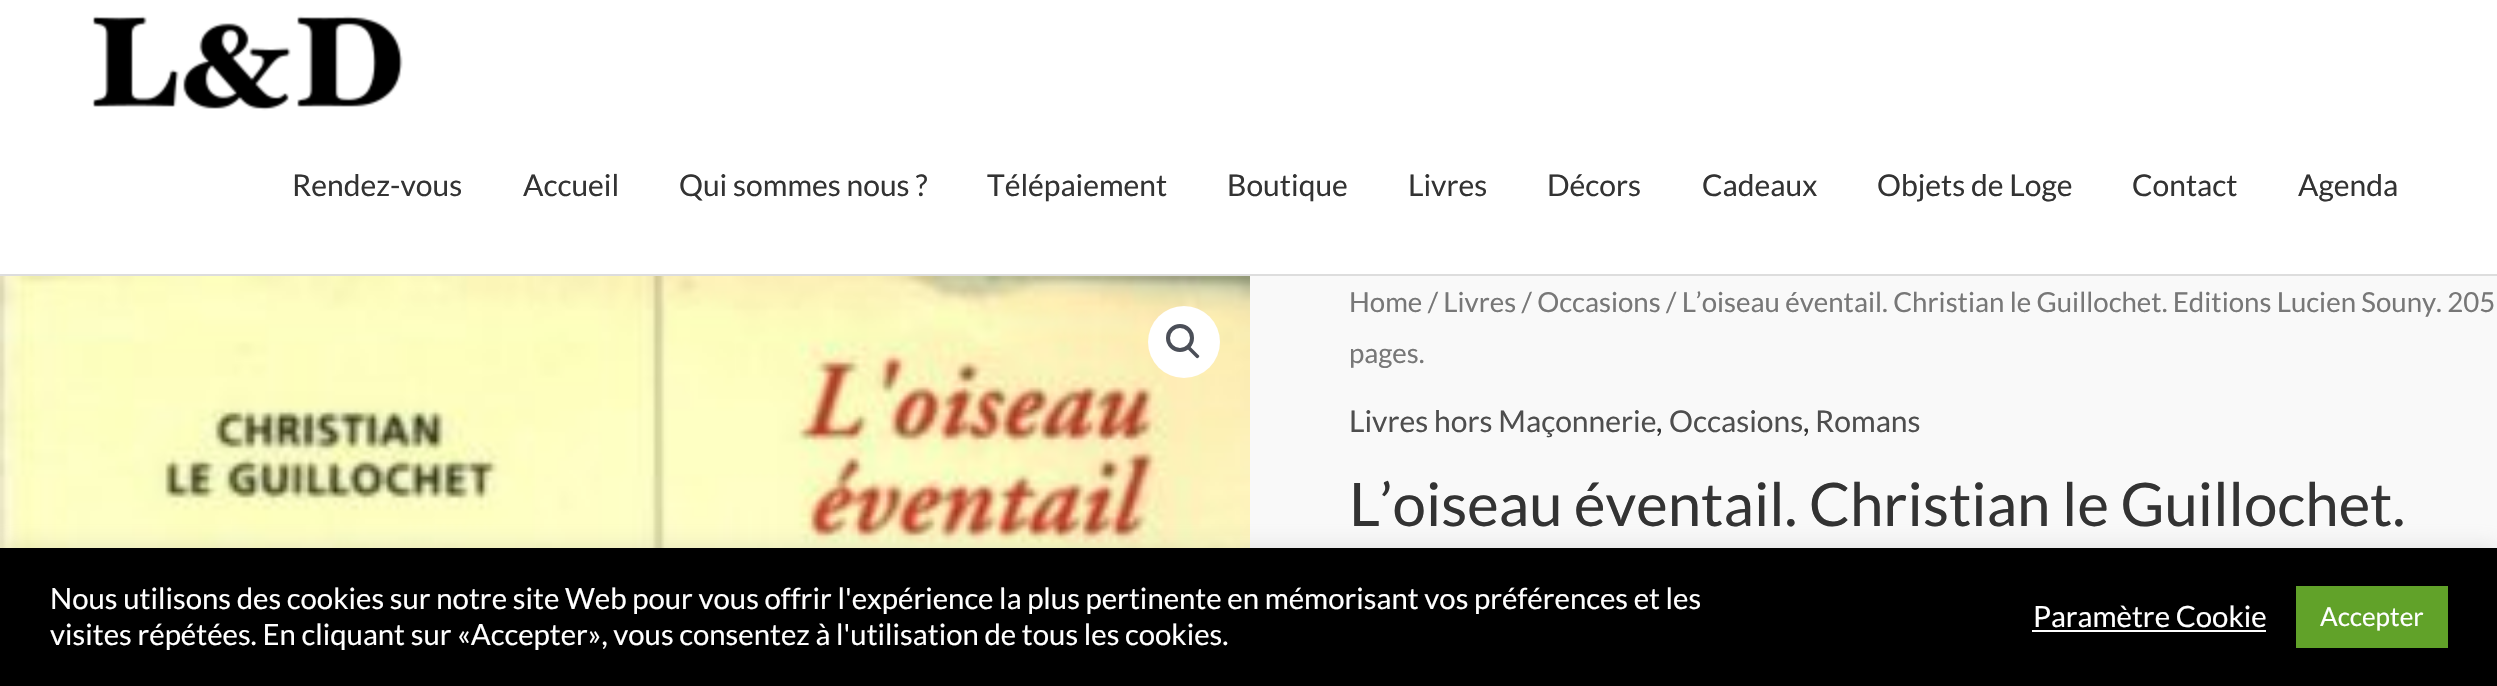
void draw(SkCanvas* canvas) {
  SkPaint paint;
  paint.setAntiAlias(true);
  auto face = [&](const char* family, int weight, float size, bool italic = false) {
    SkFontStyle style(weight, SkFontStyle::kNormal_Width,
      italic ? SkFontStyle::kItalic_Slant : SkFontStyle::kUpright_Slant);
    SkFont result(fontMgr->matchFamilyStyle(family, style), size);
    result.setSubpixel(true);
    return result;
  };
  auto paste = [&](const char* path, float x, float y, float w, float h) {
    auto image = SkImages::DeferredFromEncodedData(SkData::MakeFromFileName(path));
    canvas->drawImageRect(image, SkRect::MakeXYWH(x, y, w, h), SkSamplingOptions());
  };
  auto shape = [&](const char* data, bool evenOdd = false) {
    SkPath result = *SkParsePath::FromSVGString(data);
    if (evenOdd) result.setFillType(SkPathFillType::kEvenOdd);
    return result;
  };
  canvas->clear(0xfff9f9f9);
  paint.setColor(0xffffffff);
  canvas->drawRect(SkRect::MakeXYWH(0, 0, 2497, 274), paint);
  paint.setColor(0xffdddddd);
  canvas->drawRect(SkRect::MakeXYWH(0, 274, 2497, 2), paint);
  paste("img/1.png", 92, 15, 311, 96);
  paste("img/2.png", 0, 276, 1250, 272);
  paint.setColor(0xffffffff);
  canvas->drawCircle(1184, 342, 36, paint);
  paint.setStroke(true);
  paint.setStrokeWidth(4);
  paint.setColor(0xff4b4f58);
  canvas->drawCircle(1180, 338, 12, paint);
  paint.setStroke(false);
  canvas->drawPath(shape("M1187.5 346.5C1188 345.5 1189.5 345.5 1190 346.5L1198.5 355C1199.5 355.5 1199.5 357 1198.5 357.5C1198 358.5 1196.5 358.5 1196 357.5L1187.5 349C1186.5 348.5 1186.5 347 1187.5 346.5Z"), paint);
  paint.setColor(0x4dacabab);
  paint.setMaskFilter(SkMaskFilter::MakeBlur(kNormal_SkBlurStyle, 10));
  canvas->drawRect(SkRect::MakeXYWH(0, 546, 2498, 138), paint);
  paint.setMaskFilter(nullptr);
  {
    const struct { float x, y, w, h; SkColor color; } items[] = {
      {0, 548, 2497, 138, 0xff000000},
      {2032, 630, 234, 2, 0xffffffff},
      {2296, 586, 152, 62, 0xff61a229},
    };
    for (auto [x, y, w, h, color] : items) {
      paint.setColor(color);
      canvas->drawRect(SkRect::MakeXYWH(x, y, w, h), paint);
    }
  }
  auto f0 = face("Lato", 400, 30);
  paint.setColor(0xff333333);
  {
    const struct { const char* s; float x, y; } items[] = {
      {"Rendez-vous", 292, 196},
      {"Accueil", 523, 196},
      {"Qui sommes nous ?", 679, 196},
      {"Télépaiement", 987, 196},
      {"Boutique", 1227, 196},
      {"Livres", 1408, 196},
      {"Décors", 1547, 196},
      {"Cadeaux", 1702, 196},
      {"Objets de Loge", 1877, 196},
      {"Contact", 2132, 196},
      {"Agenda", 2298, 196},
    };
    for (auto [s, x, y] : items) {
      canvas->drawString(s, x, y, f0, paint);
    }
  }
  auto f1 = face("Lato", 400, 27.6f);
  paint.setColor(0xff777777);
  canvas->drawString("Home / Livres / Occasions / L’oiseau éventail. Christian le Guillochet. Editions Lucien Souny. 205", 1349, 312, f1, paint);
  canvas->drawString("pages.", 1349, 363, f1, paint);
  paint.setColor(0xff4e4e4e);
  canvas->drawString("Livres hors Maçonnerie", 1349, 432, f0, paint);
  paint.setColor(0xff333333);
  canvas->drawString(",", 1656, 432, f0, paint);
  paint.setColor(0xff4e4e4e);
  canvas->drawString("Occasions", 1669, 432, f0, paint);
  paint.setColor(0xff333333);
  canvas->drawString(",", 1803, 432, f0, paint);
  paint.setColor(0xff4e4e4e);
  canvas->drawString("Romans", 1815, 432, f0, paint);
  auto f2 = face("Lato", 400, 60);
  paint.setColor(0xff333333);
  canvas->drawString("L’oiseau éventail. Christian le Guillochet.", 1349, 526, f2, paint);
  auto f3 = face("Lato", 400, 29.33f);
  paint.setColor(0xffffffff);
  {
    const struct { const char* s; float x, y; } items[] = {
      {"Nous utilisons des cookies sur notre site Web pour vous offrir l'expérience la plus pertinente en mémorisant vos préférences et les", 50, 609},
      {"visites répétées. En cliquant sur «Accepter», vous consentez à l'utilisation de tous les cookies.", 50, 645},
      {"Paramètre Cookie", 2033, 627},
    };
    for (auto [s, x, y] : items) {
      canvas->drawString(s, x, y, f3, paint);
    }
  }
  auto f4 = face("Lato", 400, 26);
  canvas->drawString("Accepter", 2320, 626, f4, paint);
}
